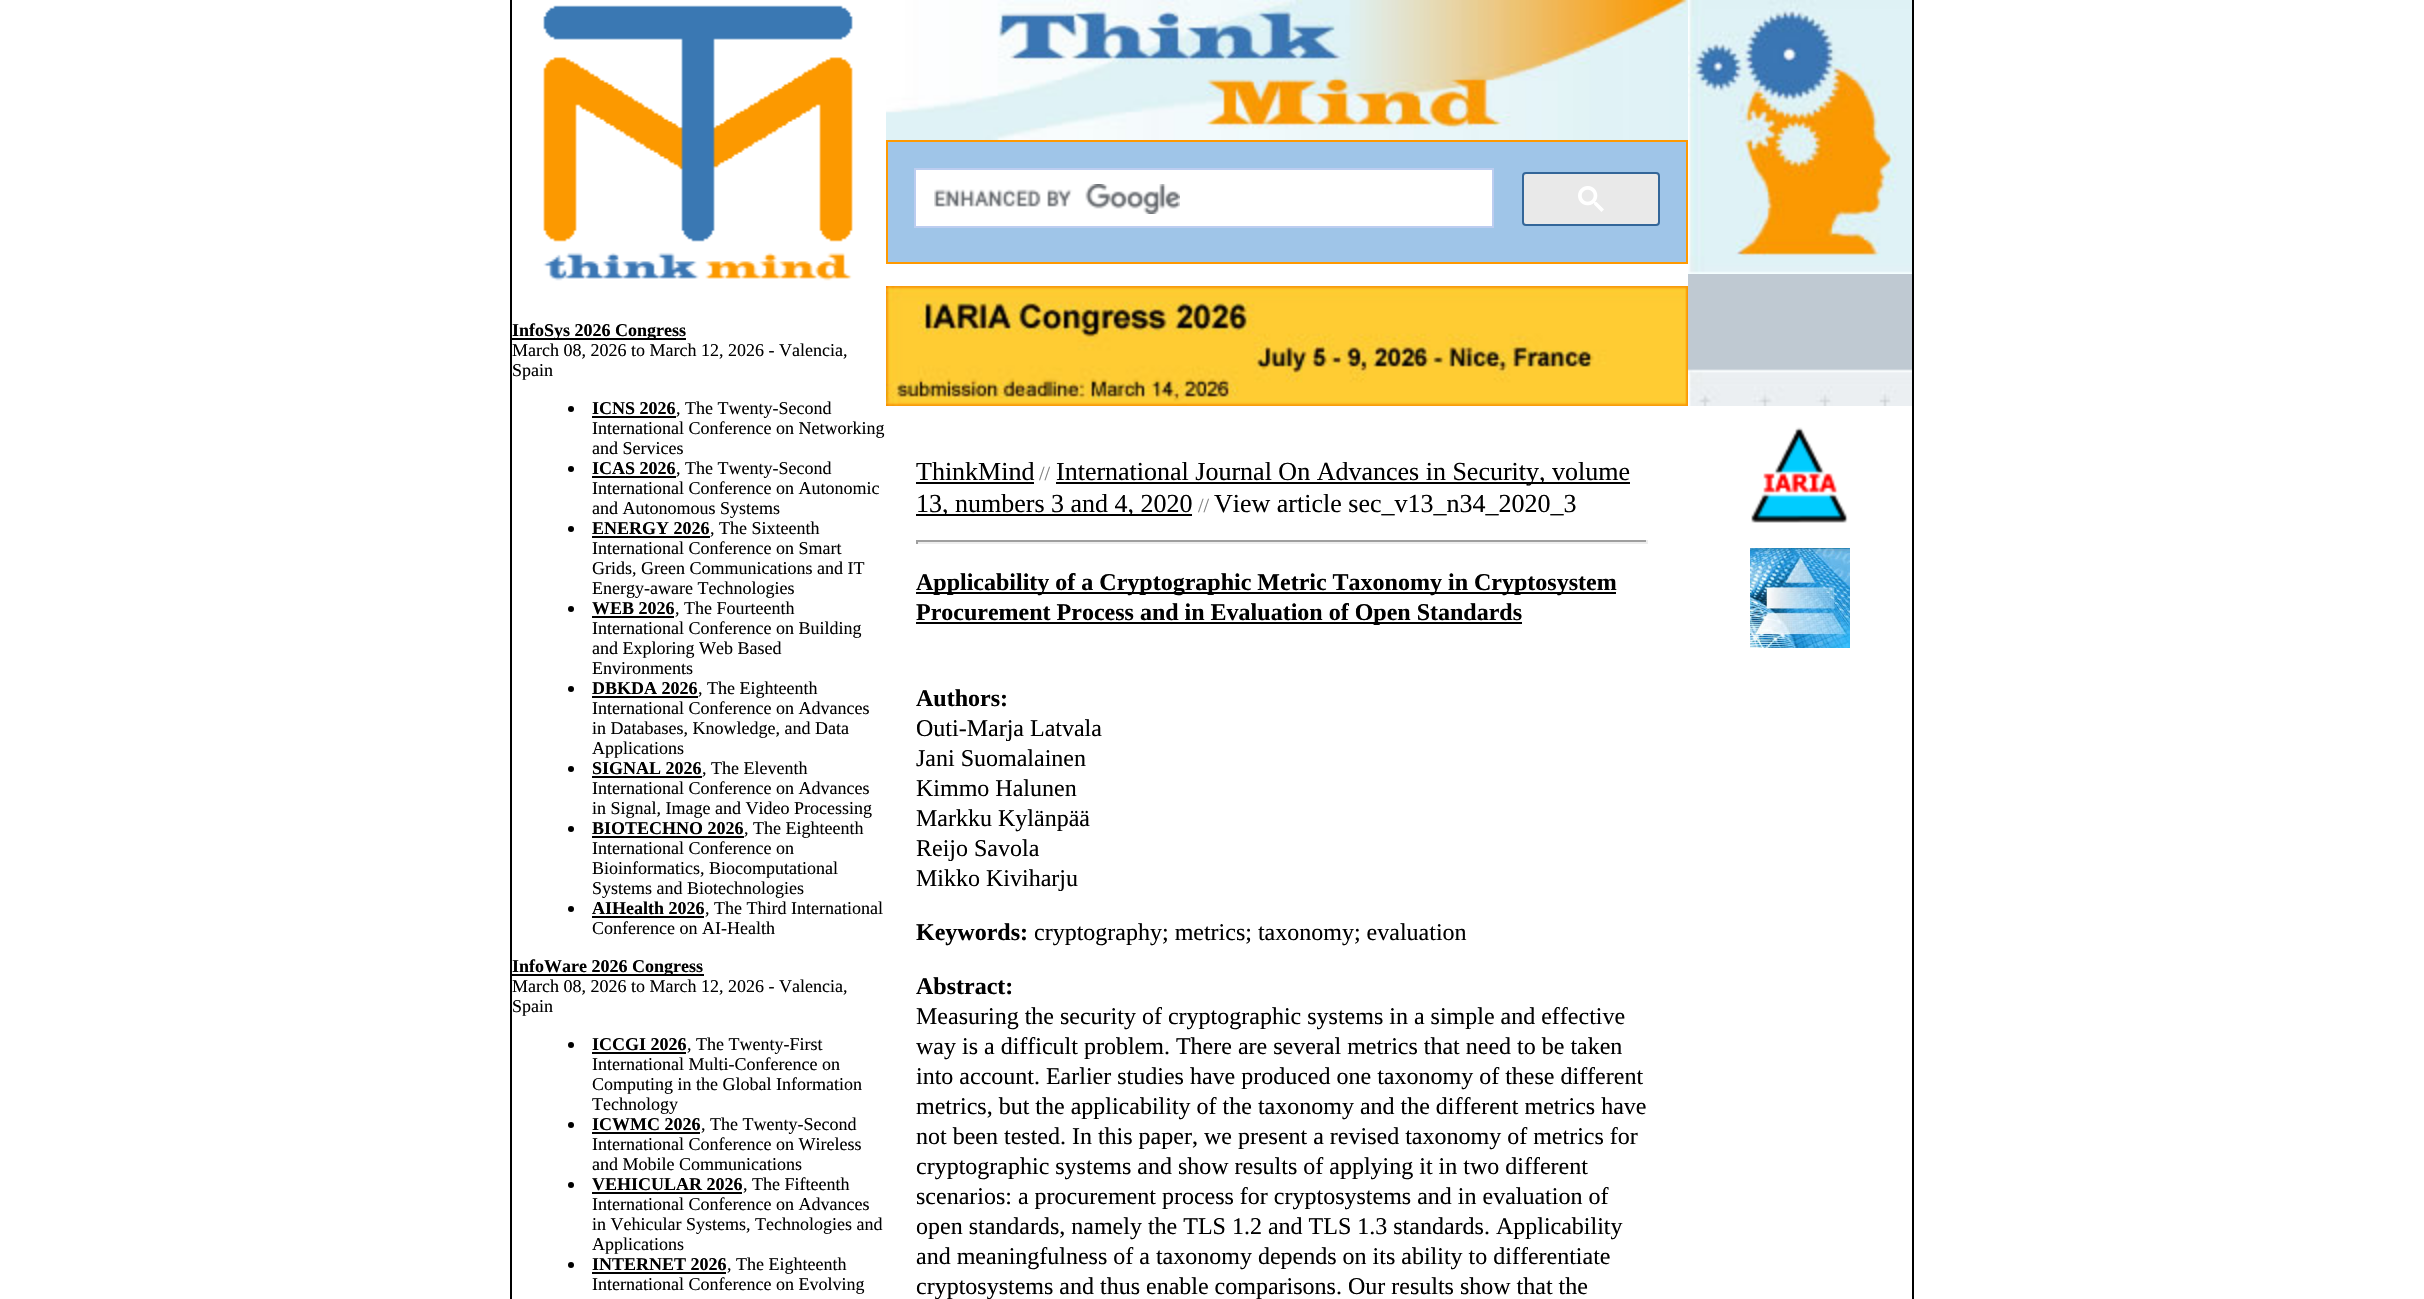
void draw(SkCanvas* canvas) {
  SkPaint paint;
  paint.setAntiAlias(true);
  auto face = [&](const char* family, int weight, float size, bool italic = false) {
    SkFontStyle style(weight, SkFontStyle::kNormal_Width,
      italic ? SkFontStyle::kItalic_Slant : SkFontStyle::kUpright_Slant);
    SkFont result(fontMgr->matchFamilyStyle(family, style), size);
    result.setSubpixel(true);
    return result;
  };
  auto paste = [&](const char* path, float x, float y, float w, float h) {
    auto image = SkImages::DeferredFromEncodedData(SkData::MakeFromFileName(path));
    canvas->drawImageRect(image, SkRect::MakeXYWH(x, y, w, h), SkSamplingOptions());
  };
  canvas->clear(0xffffffff);
  paint.setColor(0xff000000);
  canvas->drawRect(SkRect::MakeXYWH(510, 0, 2, 1299), paint);
  paste("img/1.png", 543, 5, 310, 276);
  canvas->drawRect(SkRect::MakeXYWH(512, 338, 174, 2), paint);
  canvas->drawCircle(571, 409, 3, paint);
  canvas->drawRect(SkRect::MakeXYWH(592, 416, 84, 2), paint);
  canvas->drawCircle(571, 469, 3, paint);
  canvas->drawRect(SkRect::MakeXYWH(592, 476, 84, 2), paint);
  canvas->drawCircle(571, 529, 3, paint);
  canvas->drawRect(SkRect::MakeXYWH(592, 536, 118, 2), paint);
  canvas->drawCircle(571, 609, 3, paint);
  canvas->drawRect(SkRect::MakeXYWH(592, 616, 82, 2), paint);
  canvas->drawCircle(571, 689, 3, paint);
  canvas->drawRect(SkRect::MakeXYWH(592, 696, 106, 2), paint);
  canvas->drawCircle(571, 769, 3, paint);
  canvas->drawRect(SkRect::MakeXYWH(592, 776, 110, 2), paint);
  canvas->drawCircle(571, 829, 3, paint);
  canvas->drawRect(SkRect::MakeXYWH(592, 836, 152, 2), paint);
  canvas->drawCircle(571, 909, 3, paint);
  canvas->drawRect(SkRect::MakeXYWH(592, 916, 112, 2), paint);
  canvas->drawRect(SkRect::MakeXYWH(512, 974, 192, 2), paint);
  canvas->drawCircle(571, 1045, 3, paint);
  canvas->drawRect(SkRect::MakeXYWH(592, 1052, 94, 2), paint);
  canvas->drawCircle(571, 1125, 3, paint);
  canvas->drawRect(SkRect::MakeXYWH(592, 1132, 108, 2), paint);
  canvas->drawCircle(571, 1185, 3, paint);
  canvas->drawRect(SkRect::MakeXYWH(592, 1192, 150, 2), paint);
  canvas->drawCircle(571, 1265, 3, paint);
  canvas->drawRect(SkRect::MakeXYWH(592, 1272, 134, 2), paint);
  paste("img/2.png", 886, 0, 802, 140);
  paint.setColor(0xff9fc5e8);
  canvas->drawRect(SkRect::MakeXYWH(887, 141, 800, 122), paint);
  paint.setStroke(true);
  paint.setStrokeWidth(2);
  paint.setColor(0xffff9900);
  canvas->drawRect(SkRect::MakeXYWH(887, 141, 800, 122), paint);
  paint.setStroke(false);
  paint.setColor(0xffffffff);
  canvas->drawRect(SkRect::MakeXYWH(915, 169, 578, 58), paint);
  paint.setStroke(true);
  paint.setColor(0xffbccdf0);
  canvas->drawRect(SkRect::MakeXYWH(915, 169, 578, 58), paint);
  paste("img/3.png", 934, 184, 246, 30);
  paint.setStroke(false);
  paint.setColor(0xffe9e9e9);
  canvas->drawRoundRect(SkRect::MakeXYWH(1523, 173, 136, 52), 3, 3, paint);
  paint.setStroke(true);
  paint.setColor(0xff336699);
  canvas->drawRoundRect(SkRect::MakeXYWH(1523, 173, 136, 52), 3, 3, paint);
  paste("img/4.png", 1578, 186, 26, 26);
  paste("img/5.png", 886, 286, 802, 120);
  paint.setStroke(false);
  {
    const struct { float x, y, w, h; SkColor color; } items[] = {
      {916, 482, 118, 2, 0xff000000},
      {1056, 482, 574, 2, 0xff000000},
      {916, 514, 276, 2, 0xff000000},
      {916, 540, 732, 2, 0xff9f9f9f},
      {1646, 540, 2, 4, 0xffeeeeee},
      {916, 542, 732, 2, 0xffeeeeee},
      {916, 540, 2, 4, 0xff9f9f9f},
      {916, 592, 700, 2, 0xff000000},
      {916, 622, 606, 2, 0xff000000},
    };
    for (auto [x, y, w, h, color] : items) {
      paint.setColor(color);
      canvas->drawRect(SkRect::MakeXYWH(x, y, w, h), paint);
    }
  }
  paste("img/6.png", 1688, 0, 224, 274);
  paste("img/7.png", 1688, 274, 224, 132);
  paste("img/8.png", 1751, 427, 97, 96);
  paste("img/9.png", 1750, 548, 100, 100);
  canvas->drawRect(SkRect::MakeXYWH(1912, 0, 2, 1299), paint);
  auto f0 = face("Liberation Serif", 700, 18);
  canvas->drawString("InfoSys 2026 Congress", 512, 336, f0, paint);
  auto f1 = face("Liberation Serif", 400, 18);
  canvas->drawString("March 08, 2026 to March 12, 2026 - Valencia,", 512, 356, f1, paint);
  canvas->drawString("Spain", 512, 376, f1, paint);
  canvas->drawString("ICNS 2026", 592, 414, f0, paint);
  {
    const struct { const char* s; float x, y; } items[] = {
      {", The Twenty-Second", 676, 414},
      {"International Conference on Networking", 592, 434},
      {"and Services", 592, 454},
    };
    for (auto [s, x, y] : items) {
      canvas->drawString(s, x, y, f1, paint);
    }
  }
  canvas->drawString("ICAS 2026", 592, 474, f0, paint);
  {
    const struct { const char* s; float x, y; } items[] = {
      {", The Twenty-Second", 676, 474},
      {"International Conference on Autonomic", 592, 494},
      {"and Autonomous Systems", 592, 514},
    };
    for (auto [s, x, y] : items) {
      canvas->drawString(s, x, y, f1, paint);
    }
  }
  canvas->drawString("ENERGY 2026", 592, 534, f0, paint);
  {
    const struct { const char* s; float x, y; } items[] = {
      {", The Sixteenth", 710, 534},
      {"International Conference on Smart", 592, 554},
      {"Grids, Green Communications and IT", 592, 574},
      {"Energy-aware Technologies", 592, 594},
    };
    for (auto [s, x, y] : items) {
      canvas->drawString(s, x, y, f1, paint);
    }
  }
  canvas->drawString("WEB 2026", 592, 614, f0, paint);
  {
    const struct { const char* s; float x, y; } items[] = {
      {", The Fourteenth", 675, 614},
      {"International Conference on Building", 592, 634},
      {"and Exploring Web Based", 592, 654},
      {"Environments", 592, 674},
    };
    for (auto [s, x, y] : items) {
      canvas->drawString(s, x, y, f1, paint);
    }
  }
  canvas->drawString("DBKDA 2026", 592, 694, f0, paint);
  {
    const struct { const char* s; float x, y; } items[] = {
      {", The Eighteenth", 698, 694},
      {"International Conference on Advances", 592, 714},
      {"in Databases, Knowledge, and Data", 592, 734},
      {"Applications", 592, 754},
    };
    for (auto [s, x, y] : items) {
      canvas->drawString(s, x, y, f1, paint);
    }
  }
  canvas->drawString("SIGNAL 2026", 592, 774, f0, paint);
  {
    const struct { const char* s; float x, y; } items[] = {
      {", The Eleventh", 702, 774},
      {"International Conference on Advances", 592, 794},
      {"in Signal, Image and Video Processing", 592, 814},
    };
    for (auto [s, x, y] : items) {
      canvas->drawString(s, x, y, f1, paint);
    }
  }
  canvas->drawString("BIOTECHNO 2026", 592, 834, f0, paint);
  {
    const struct { const char* s; float x, y; } items[] = {
      {", The Eighteenth", 744, 834},
      {"International Conference on", 592, 854},
      {"Bioinformatics, Biocomputational", 592, 874},
      {"Systems and Biotechnologies", 592, 894},
    };
    for (auto [s, x, y] : items) {
      canvas->drawString(s, x, y, f1, paint);
    }
  }
  canvas->drawString("AIHealth 2026", 592, 914, f0, paint);
  canvas->drawString(", The Third International", 705, 914, f1, paint);
  canvas->drawString("Conference on AI-Health", 592, 934, f1, paint);
  canvas->drawString("InfoWare 2026 Congress", 512, 972, f0, paint);
  canvas->drawString("March 08, 2026 to March 12, 2026 - Valencia,", 512, 992, f1, paint);
  canvas->drawString("Spain", 512, 1012, f1, paint);
  canvas->drawString("ICCGI 2026", 592, 1050, f0, paint);
  {
    const struct { const char* s; float x, y; } items[] = {
      {", The Twenty-First", 687, 1050},
      {"International Multi-Conference on", 592, 1070},
      {"Computing in the Global Information", 592, 1090},
      {"Technology", 592, 1110},
    };
    for (auto [s, x, y] : items) {
      canvas->drawString(s, x, y, f1, paint);
    }
  }
  canvas->drawString("ICWMC 2026", 592, 1130, f0, paint);
  {
    const struct { const char* s; float x, y; } items[] = {
      {", The Twenty-Second", 701, 1130},
      {"International Conference on Wireless", 592, 1150},
      {"and Mobile Communications", 592, 1170},
    };
    for (auto [s, x, y] : items) {
      canvas->drawString(s, x, y, f1, paint);
    }
  }
  canvas->drawString("VEHICULAR 2026", 592, 1190, f0, paint);
  {
    const struct { const char* s; float x, y; } items[] = {
      {", The Fifteenth", 743, 1190},
      {"International Conference on Advances", 592, 1210},
      {"in Vehicular Systems, Technologies and", 592, 1230},
      {"Applications", 592, 1250},
    };
    for (auto [s, x, y] : items) {
      canvas->drawString(s, x, y, f1, paint);
    }
  }
  canvas->drawString("INTERNET 2026", 592, 1270, f0, paint);
  canvas->drawString(", The Eighteenth", 727, 1270, f1, paint);
  canvas->drawString("International Conference on Evolving", 592, 1290, f1, paint);
  auto f2 = face("Liberation Serif", 400, 26);
  canvas->drawString("ThinkMind", 916, 480, f2, paint);
  auto f3 = face("Liberation Serif", 400, 20);
  paint.setColor(0xff808080);
  canvas->drawString("//", 1039, 480, f3, paint);
  paint.setColor(0xff000000);
  canvas->drawString("International Journal On Advances in Security, volume", 1056, 480, f2, paint);
  canvas->drawString("13, numbers 3 and 4, 2020", 916, 512, f2, paint);
  paint.setColor(0xff808080);
  canvas->drawString("//", 1198, 512, f3, paint);
  paint.setColor(0xff000000);
  canvas->drawString("View article sec_v13_n34_2020_3", 1214, 512, f2, paint);
  auto f4 = face("Liberation Serif", 700, 24);
  {
    const struct { const char* s; float x, y; } items[] = {
      {"Applicability of a Cryptographic Metric Taxonomy in Cryptosystem", 916, 590},
      {"Procurement Process and in Evaluation of Open Standards", 916, 620},
      {"Authors:", 916, 706},
    };
    for (auto [s, x, y] : items) {
      canvas->drawString(s, x, y, f4, paint);
    }
  }
  auto f5 = face("Liberation Serif", 400, 24);
  {
    const struct { const char* s; float x, y; } items[] = {
      {"Outi-Marja Latvala", 916, 736},
      {"Jani Suomalainen", 916, 766},
      {"Kimmo Halunen", 916, 796},
      {"Markku Kylänpää", 916, 826},
      {"Reijo Savola", 916, 856},
      {"Mikko Kiviharju", 916, 886},
    };
    for (auto [s, x, y] : items) {
      canvas->drawString(s, x, y, f5, paint);
    }
  }
  canvas->drawString("Keywords:", 916, 940, f4, paint);
  canvas->drawString("cryptography; metrics; taxonomy; evaluation", 1034, 940, f5, paint);
  canvas->drawString("Abstract:", 916, 994, f4, paint);
  {
    const struct { const char* s; float x, y; } items[] = {
      {"Measuring the security of cryptographic systems in a simple and effective", 916, 1024},
      {"way is a difficult problem. There are several metrics that need to be taken", 916, 1054},
      {"into account. Earlier studies have produced one taxonomy of these different", 916, 1084},
      {"metrics, but the applicability of the taxonomy and the different metrics have", 916, 1114},
      {"not been tested. In this paper, we present a revised taxonomy of metrics for", 916, 1144},
      {"cryptographic systems and show results of applying it in two different", 916, 1174},
      {"scenarios: a procurement process for cryptosystems and in evaluation of", 916, 1204},
      {"open standards, namely the TLS 1.2 and TLS 1.3 standards. Applicability", 916, 1234},
      {"and meaningfulness of a taxonomy depends on its ability to differentiate", 916, 1264},
      {"cryptosystems and thus enable comparisons. Our results show that the", 916, 1294},
    };
    for (auto [s, x, y] : items) {
      canvas->drawString(s, x, y, f5, paint);
    }
  }
}
